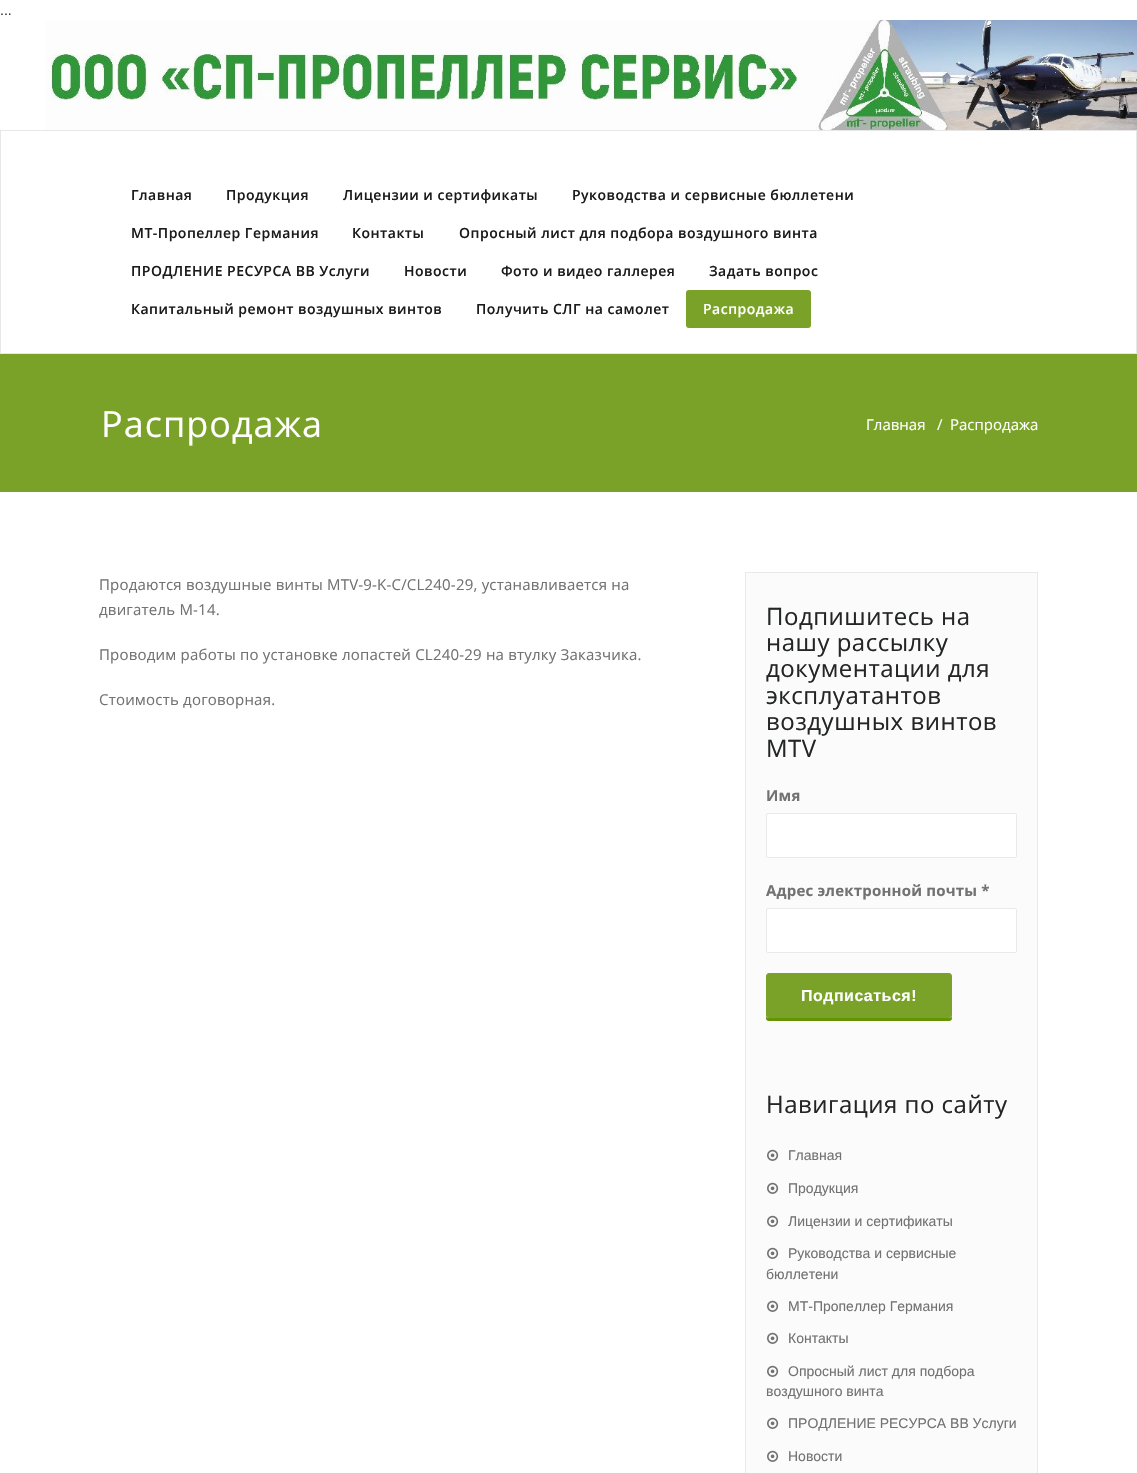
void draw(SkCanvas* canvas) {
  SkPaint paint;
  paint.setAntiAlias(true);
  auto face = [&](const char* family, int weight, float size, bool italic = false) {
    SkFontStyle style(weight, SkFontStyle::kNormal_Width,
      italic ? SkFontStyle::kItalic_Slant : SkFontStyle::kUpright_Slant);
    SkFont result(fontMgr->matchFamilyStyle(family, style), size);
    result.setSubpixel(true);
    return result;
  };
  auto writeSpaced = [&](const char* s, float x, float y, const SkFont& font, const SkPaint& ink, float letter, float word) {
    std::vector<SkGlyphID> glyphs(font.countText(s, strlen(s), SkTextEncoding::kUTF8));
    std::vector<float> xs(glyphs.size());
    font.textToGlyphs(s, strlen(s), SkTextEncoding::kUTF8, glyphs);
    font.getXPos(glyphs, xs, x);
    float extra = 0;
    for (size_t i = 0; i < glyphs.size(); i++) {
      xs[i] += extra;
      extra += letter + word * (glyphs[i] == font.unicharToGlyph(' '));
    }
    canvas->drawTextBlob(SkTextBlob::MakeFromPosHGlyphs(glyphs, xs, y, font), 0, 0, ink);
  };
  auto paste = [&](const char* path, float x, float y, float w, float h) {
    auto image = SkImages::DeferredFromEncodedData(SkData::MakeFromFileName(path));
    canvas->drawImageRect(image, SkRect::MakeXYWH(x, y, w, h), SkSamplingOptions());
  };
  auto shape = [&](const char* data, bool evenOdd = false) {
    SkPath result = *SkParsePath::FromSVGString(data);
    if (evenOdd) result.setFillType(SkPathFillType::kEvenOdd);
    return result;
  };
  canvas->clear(0xffffffff);
  paste("img/1.png", 45, 20, 1092, 110);
  paint.setStroke(true);
  paint.setStrokeWidth(1);
  paint.setColor(0xffe7e7e7);
  canvas->drawRect(SkRect::MakeXYWH(0.5f, 130.5f, 1136, 223), paint);
  paint.setStroke(false);
  paint.setColor(0xff7aa228);
  canvas->drawRoundRect(SkRect::MakeXYWH(686, 290, 125, 38), 3, 3, paint);
  canvas->drawRect(SkRect::MakeXYWH(0, 354, 1137, 138), paint);
  paint.setColor(0xfffbfbfb);
  canvas->drawRect(SkRect::MakeXYWH(745.5f, 572.5f, 292, 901), paint);
  paint.setStroke(true);
  paint.setColor(0xffe9e9e9);
  canvas->drawRect(SkRect::MakeXYWH(745.5f, 572.5f, 292, 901), paint);
  paint.setStroke(false);
  paint.setColor(0xffffffff);
  canvas->drawRoundRect(SkRect::MakeXYWH(766.5f, 813.5f, 250, 44), 1.5f, 1.5f, paint);
  paint.setStroke(true);
  paint.setColor(0xffe9e9e9);
  canvas->drawRoundRect(SkRect::MakeXYWH(766.5f, 813.5f, 250, 44), 1.5f, 1.5f, paint);
  paint.setStroke(false);
  paint.setColor(0xffffffff);
  canvas->drawRoundRect(SkRect::MakeXYWH(766.5f, 908.5f, 250, 44), 1.5f, 1.5f, paint);
  paint.setStroke(true);
  paint.setColor(0xffe9e9e9);
  canvas->drawRoundRect(SkRect::MakeXYWH(766.5f, 908.5f, 250, 44), 1.5f, 1.5f, paint);
  paint.setStroke(false);
  paint.setColor(0xff649403);
  canvas->drawPath(shape("M766 1015V1018C766 1020 767 1021 769 1021H949C951 1021 952 1020 952 1018V1015C952 1017 951 1018 949 1018H769C767 1018 766 1017 766 1015Z"), paint);
  paint.setColor(0xff7aa228);
  canvas->drawRoundRect(SkRect::MakeXYWH(766.5f, 973.5f, 185, 44), 2.5f, 2.5f, paint);
  paint.setStroke(true);
  canvas->drawRoundRect(SkRect::MakeXYWH(766.5f, 973.5f, 185, 44), 2.5f, 2.5f, paint);
  paste("img/2.png", 767, 1149, 12, 12);
  paste("img/2.png", 767, 1182, 12, 12);
  paste("img/2.png", 767, 1215, 12, 12);
  paste("img/2.png", 767, 1247, 12, 12);
  paste("img/2.png", 767, 1300, 12, 12);
  paste("img/2.png", 767, 1332, 12, 12);
  paste("img/2.png", 767, 1365, 12, 12);
  paste("img/2.png", 767, 1417, 12, 12);
  paste("img/2.png", 767, 1450, 12, 12);
  auto f0 = face("Liberation Sans", 400, 14);
  paint.setStroke(false);
  paint.setColor(0xff333333);
  canvas->drawString("...", 0, 15, f0, paint);
  auto f1 = face("Open Sans", 600, 14);
  paint.setColor(0xff1b1b1b);
  {
    const struct { const char* s; float x, y; } items[] = {
      {"Главная", 131, 200},
      {"Продукция", 226, 200},
      {"Лицензии и сертификаты", 343, 200},
      {"Руководства и сервисные бюллетени", 572, 200},
      {"МТ-Пропеллер Германия", 131, 238},
      {"Контакты", 352, 238},
      {"Опросный лист для подбора воздушного винта", 459, 238},
      {"ПРОДЛЕНИЕ РЕСУРСА ВВ Услуги", 131, 276},
      {"Новости", 404, 276},
      {"Фото и видео галлерея", 501, 276},
      {"Задать вопрос", 709, 276},
      {"Капитальный ремонт воздушных винтов", 131, 314},
      {"Получить СЛГ на самолет", 476, 314},
    };
    for (auto [s, x, y] : items) {
      writeSpaced(s, x, y, f1, paint, 0.5f, 0);
    }
  }
  paint.setColor(0xffffffff);
  writeSpaced("Распродажа", 703, 314, f1, paint, 0.5f, 0);
  auto f2 = face("Open Sans", 400, 36);
  writeSpaced("Распродажа", 101, 437, f2, paint, 1, 0);
  auto f3 = face("Open Sans", 400, 15);
  {
    const struct { const char* s; float x, y; } items[] = {
      {"Главная", 866, 430},
      {"/", 937, 430},
      {"Распродажа", 950, 430},
    };
    for (auto [s, x, y] : items) {
      canvas->drawString(s, x, y, f3, paint);
    }
  }
  paint.setColor(0xff727272);
  writeSpaced("Продаются воздушные винты MTV-9-K-C/CL240-29, устанавливается на", 99, 590, f3, paint, 0.2f, 0);
  canvas->save();
  canvas->clipRect(SkRect::MakeXYWH(99, 572, 616, 220));
  writeSpaced("двигатель М-14.", 99, 615, f3, paint, 0.2f, 0);
  canvas->restore();
  writeSpaced("Проводим работы по установке лопастей CL240-29 на втулку Заказчика.", 99, 660, f3, paint, 0.2f, 0);
  writeSpaced("Стоимость договорная.", 99, 705, f3, paint, 0.2f, 0);
  auto f4 = face("Open Sans", 400, 24);
  paint.setColor(0xff242526);
  {
    const struct { const char* s; float x, y; } items[] = {
      {"Подпишитесь на", 766, 625},
      {"нашу рассылку", 766, 651},
      {"документации для", 766, 677},
      {"эксплуатантов", 766, 704},
      {"воздушных винтов", 766, 730},
      {"MTV", 766, 757},
    };
    for (auto [s, x, y] : items) {
      writeSpaced(s, x, y, f4, paint, 0.5f, 0);
    }
  }
  auto f5 = face("Open Sans", 700, 15);
  paint.setColor(0xff727272);
  writeSpaced("Имя", 766, 801, f5, paint, 0.2f, 0);
  writeSpaced("Адрес электронной почты *", 766, 896, f5, paint, 0.2f, 0);
  auto f6 = face("Liberation Sans", 700, 16);
  paint.setColor(0xffffffff);
  writeSpaced("Подписаться!", 801, 1001, f6, paint, 0.5f, 0);
  paint.setColor(0xff242526);
  writeSpaced("Навигация по сайту", 766, 1113, f4, paint, 0.5f, 0);
  paint.setColor(0xff727272);
  {
    const struct { const char* s; float x, y; } items[] = {
      {"Главная", 788, 1160},
      {"Продукция", 788, 1193},
      {"Лицензии и сертификаты", 788, 1226},
      {"Руководства и сервисные", 788, 1258},
      {"бюллетени", 766, 1279},
      {"МТ-Пропеллер Германия", 788, 1311},
      {"Контакты", 788, 1343},
      {"Опросный лист для подбора", 788, 1376},
      {"воздушного винта", 766, 1396},
      {"ПРОДЛЕНИЕ РЕСУРСА ВВ Услуги", 788, 1428},
      {"Новости", 788, 1461},
    };
    for (auto [s, x, y] : items) {
      canvas->drawString(s, x, y, f0, paint);
    }
  }
}
